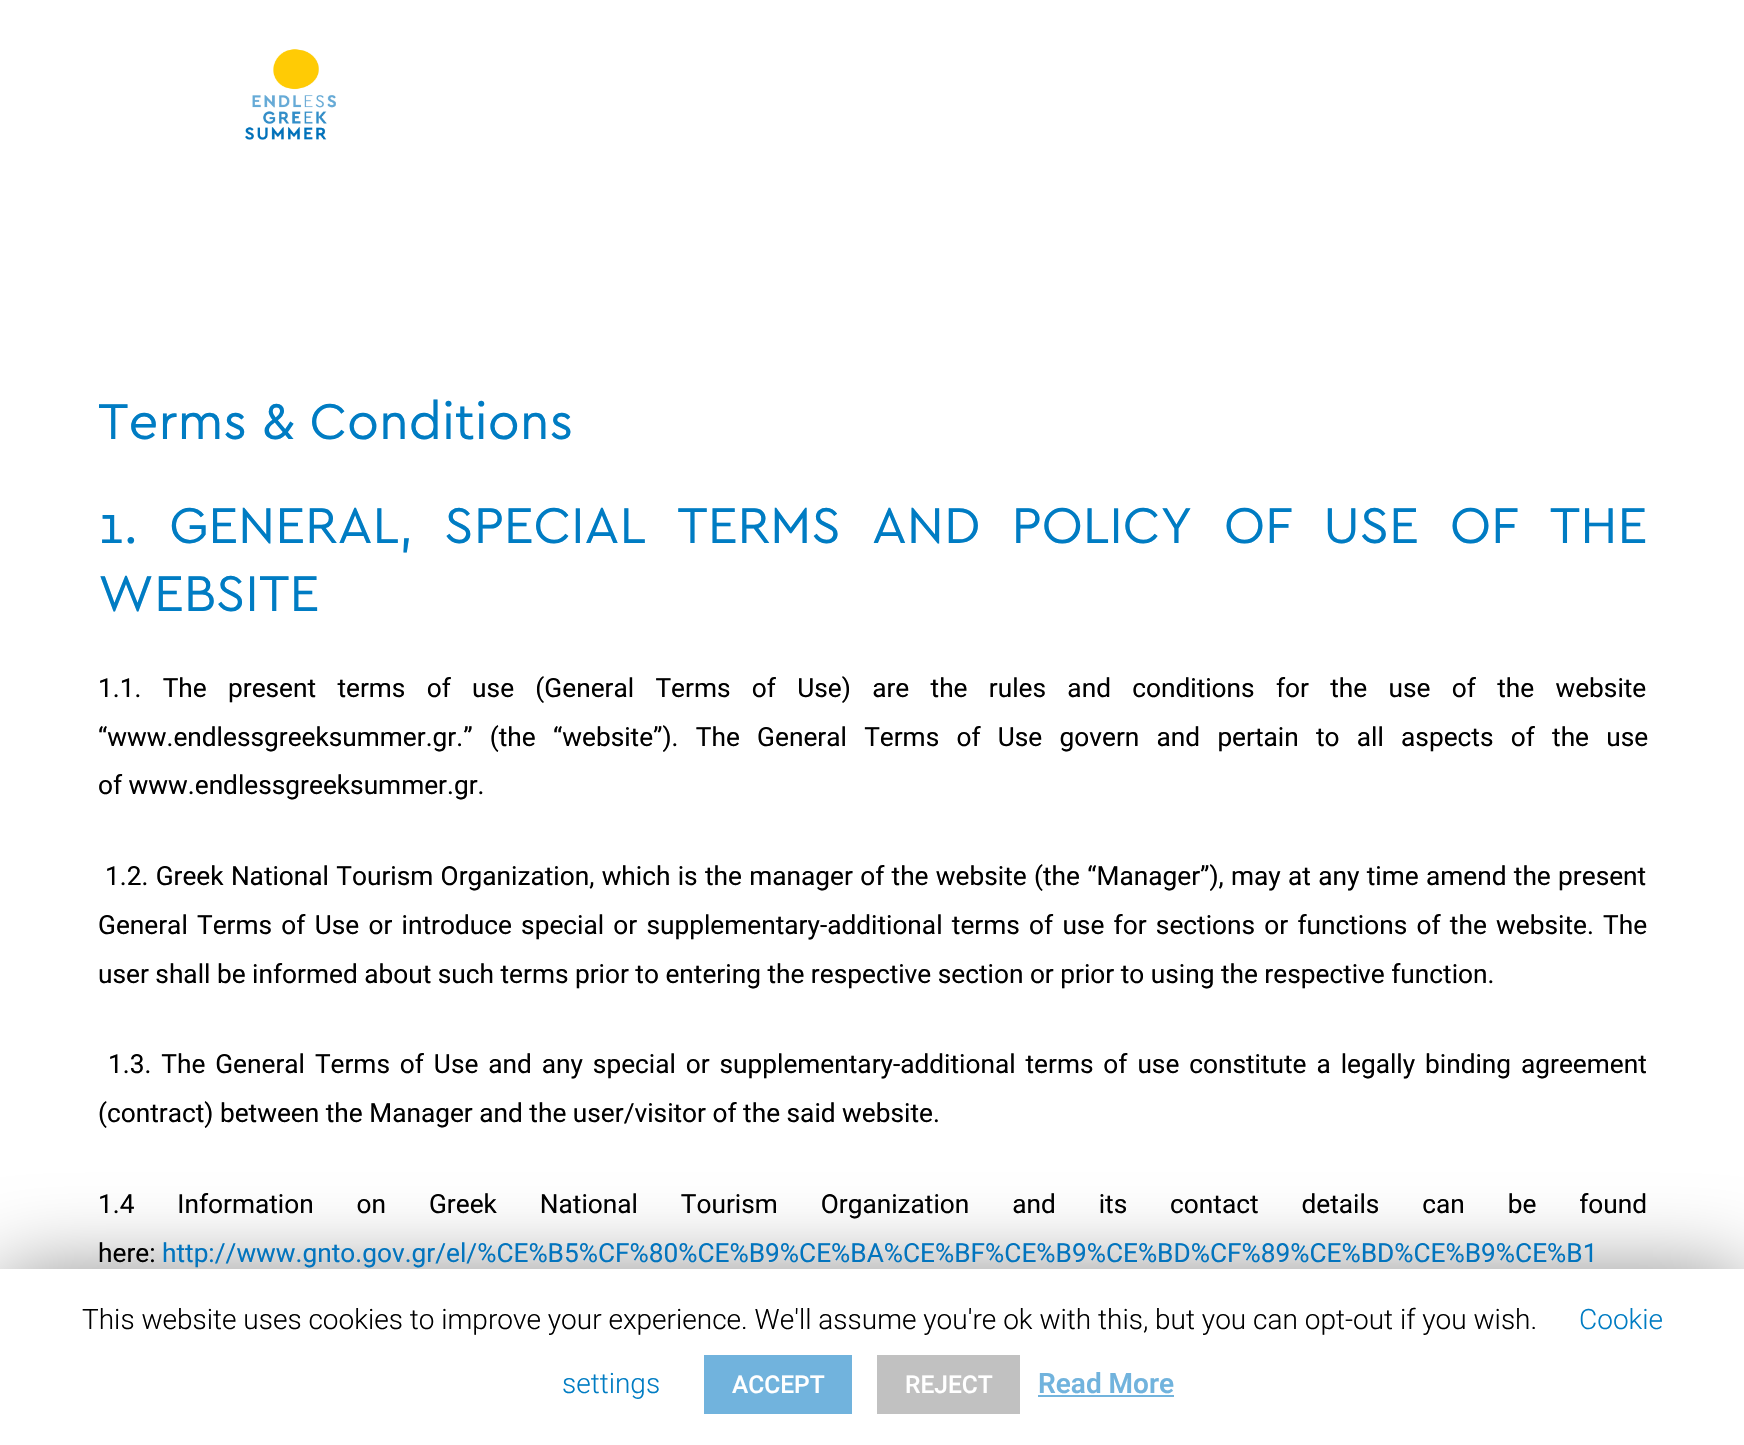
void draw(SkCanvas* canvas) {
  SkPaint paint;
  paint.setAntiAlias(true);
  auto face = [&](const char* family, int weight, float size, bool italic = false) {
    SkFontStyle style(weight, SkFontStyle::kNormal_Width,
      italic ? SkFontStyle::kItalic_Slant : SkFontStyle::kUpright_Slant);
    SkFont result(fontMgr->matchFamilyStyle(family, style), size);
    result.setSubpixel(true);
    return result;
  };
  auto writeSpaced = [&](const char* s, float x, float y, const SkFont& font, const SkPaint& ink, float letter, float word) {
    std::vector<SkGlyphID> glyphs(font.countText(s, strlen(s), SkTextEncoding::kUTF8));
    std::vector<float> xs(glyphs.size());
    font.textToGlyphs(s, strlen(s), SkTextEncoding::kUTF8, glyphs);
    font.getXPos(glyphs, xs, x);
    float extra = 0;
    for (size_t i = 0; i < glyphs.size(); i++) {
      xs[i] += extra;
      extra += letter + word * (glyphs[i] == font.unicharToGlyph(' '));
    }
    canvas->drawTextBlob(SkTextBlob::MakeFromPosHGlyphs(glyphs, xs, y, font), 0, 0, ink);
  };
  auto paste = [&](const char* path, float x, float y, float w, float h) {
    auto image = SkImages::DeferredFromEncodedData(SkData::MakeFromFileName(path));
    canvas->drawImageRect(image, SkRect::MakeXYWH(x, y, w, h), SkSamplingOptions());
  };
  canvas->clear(0xffffffff);
  paste("img/1.png", 245, 49, 91, 91);
  paint.setColor(0x80000000);
  paint.setMaskFilter(SkMaskFilter::MakeBlur(kNormal_SkBlurStyle, 44));
  canvas->drawRect(SkRect::MakeXYWH(0, 1278, 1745, 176), paint);
  paint.setMaskFilter(nullptr);
  {
    const struct { float x, y, w, h; SkColor color; } items[] = {
      {0, 1269, 1744, 176, 0xffffffff},
      {704, 1355, 148, 59, 0xff71b3dd},
      {877, 1355, 143, 59, 0xffc1c1c1},
      {1038, 1395, 136, 2, 0xff71b3dd},
    };
    for (auto [x, y, w, h, color] : items) {
      paint.setColor(color);
      canvas->drawRect(SkRect::MakeXYWH(x, y, w, h), paint);
    }
  }
  auto f0 = face("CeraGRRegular", 400, 52.5f);
  paint.setColor(0xff007cc3);
  canvas->drawString("Terms & Conditions", 98, 439, f0, paint);
  writeSpaced("1. GENERAL, SPECIAL TERMS AND POLICY OF USE OF THE", 98, 543, f0, paint, 0, 16.5f);
  canvas->drawString("WEBSITE", 98, 611, f0, paint);
  auto f1 = face("Roboto", 400, 26.25f);
  paint.setColor(0xff000000);
  writeSpaced("1.1. The present terms of use (General Terms of Use) are the rules and conditions for the use of the website", 98, 697, f1, paint, 0, 14.8f);
  writeSpaced("“www.endlessgreeksummer.gr.” (the “website”). The General Terms of Use govern and pertain to all aspects of the use", 98, 746, f1, paint, 0, 10.75f);
  canvas->drawString("of www.endlessgreeksummer.gr.", 98, 794, f1, paint);
  writeSpaced("1.2. Greek National Tourism Organization, which is the manager of the website (the “Manager”), may at any time amend the present", 105, 885, f1, paint, 0, 0.8f);
  writeSpaced("General Terms of Use or introduce special or supplementary-additional terms of use for sections or functions of the website. The", 98, 934, f1, paint, 0, 2.75f);
  canvas->drawString("user shall be informed about such terms prior to entering the respective section or prior to using the respective function.", 98, 983, f1, paint);
  writeSpaced("1.3. The General Terms of Use and any special or supplementary-additional terms of use constitute a legally binding agreement", 108, 1073, f1, paint, 0, 3.4f);
  canvas->drawString("(contract) between the Manager and the user/visitor of the said website.", 98, 1122, f1, paint);
  writeSpaced("1.4 Information on Greek National Tourism Organization and its contact details can be found", 98, 1213, f1, paint, 0, 36.4f);
  canvas->drawString("here:", 98, 1262, f1, paint);
  paint.setColor(0xff0274be);
  canvas->drawString("http://www.gnto.gov.gr/el/%CE%B5%CF%80%CE%B9%CE%BA%CE%BF%CE%B9%CE%BD%CF%89%CE%BD%CE%B9%CE%B1", 162, 1262, f1, paint);
  auto f2 = face("Roboto", 300, 28);
  paint.setColor(0xff000000);
  canvas->drawString("This website uses cookies to improve your experience. We'll assume you're ok with this, but you can opt-out if you wish.", 82, 1329, f2, paint);
  paint.setColor(0xff007cc3);
  canvas->drawString("Cookie", 1579, 1329, f2, paint);
  canvas->drawString("settings", 562, 1393, f2, paint);
  auto f3 = face("Roboto", 500, 24.5f);
  paint.setColor(0xffffffff);
  canvas->drawString("ACCEPT", 732, 1393, f3, paint);
  canvas->drawString("REJECT", 905, 1393, f3, paint);
  auto f4 = face("Roboto", 600, 28);
  paint.setColor(0xff71b3dd);
  canvas->drawString("Read More", 1038, 1393, f4, paint);
}
